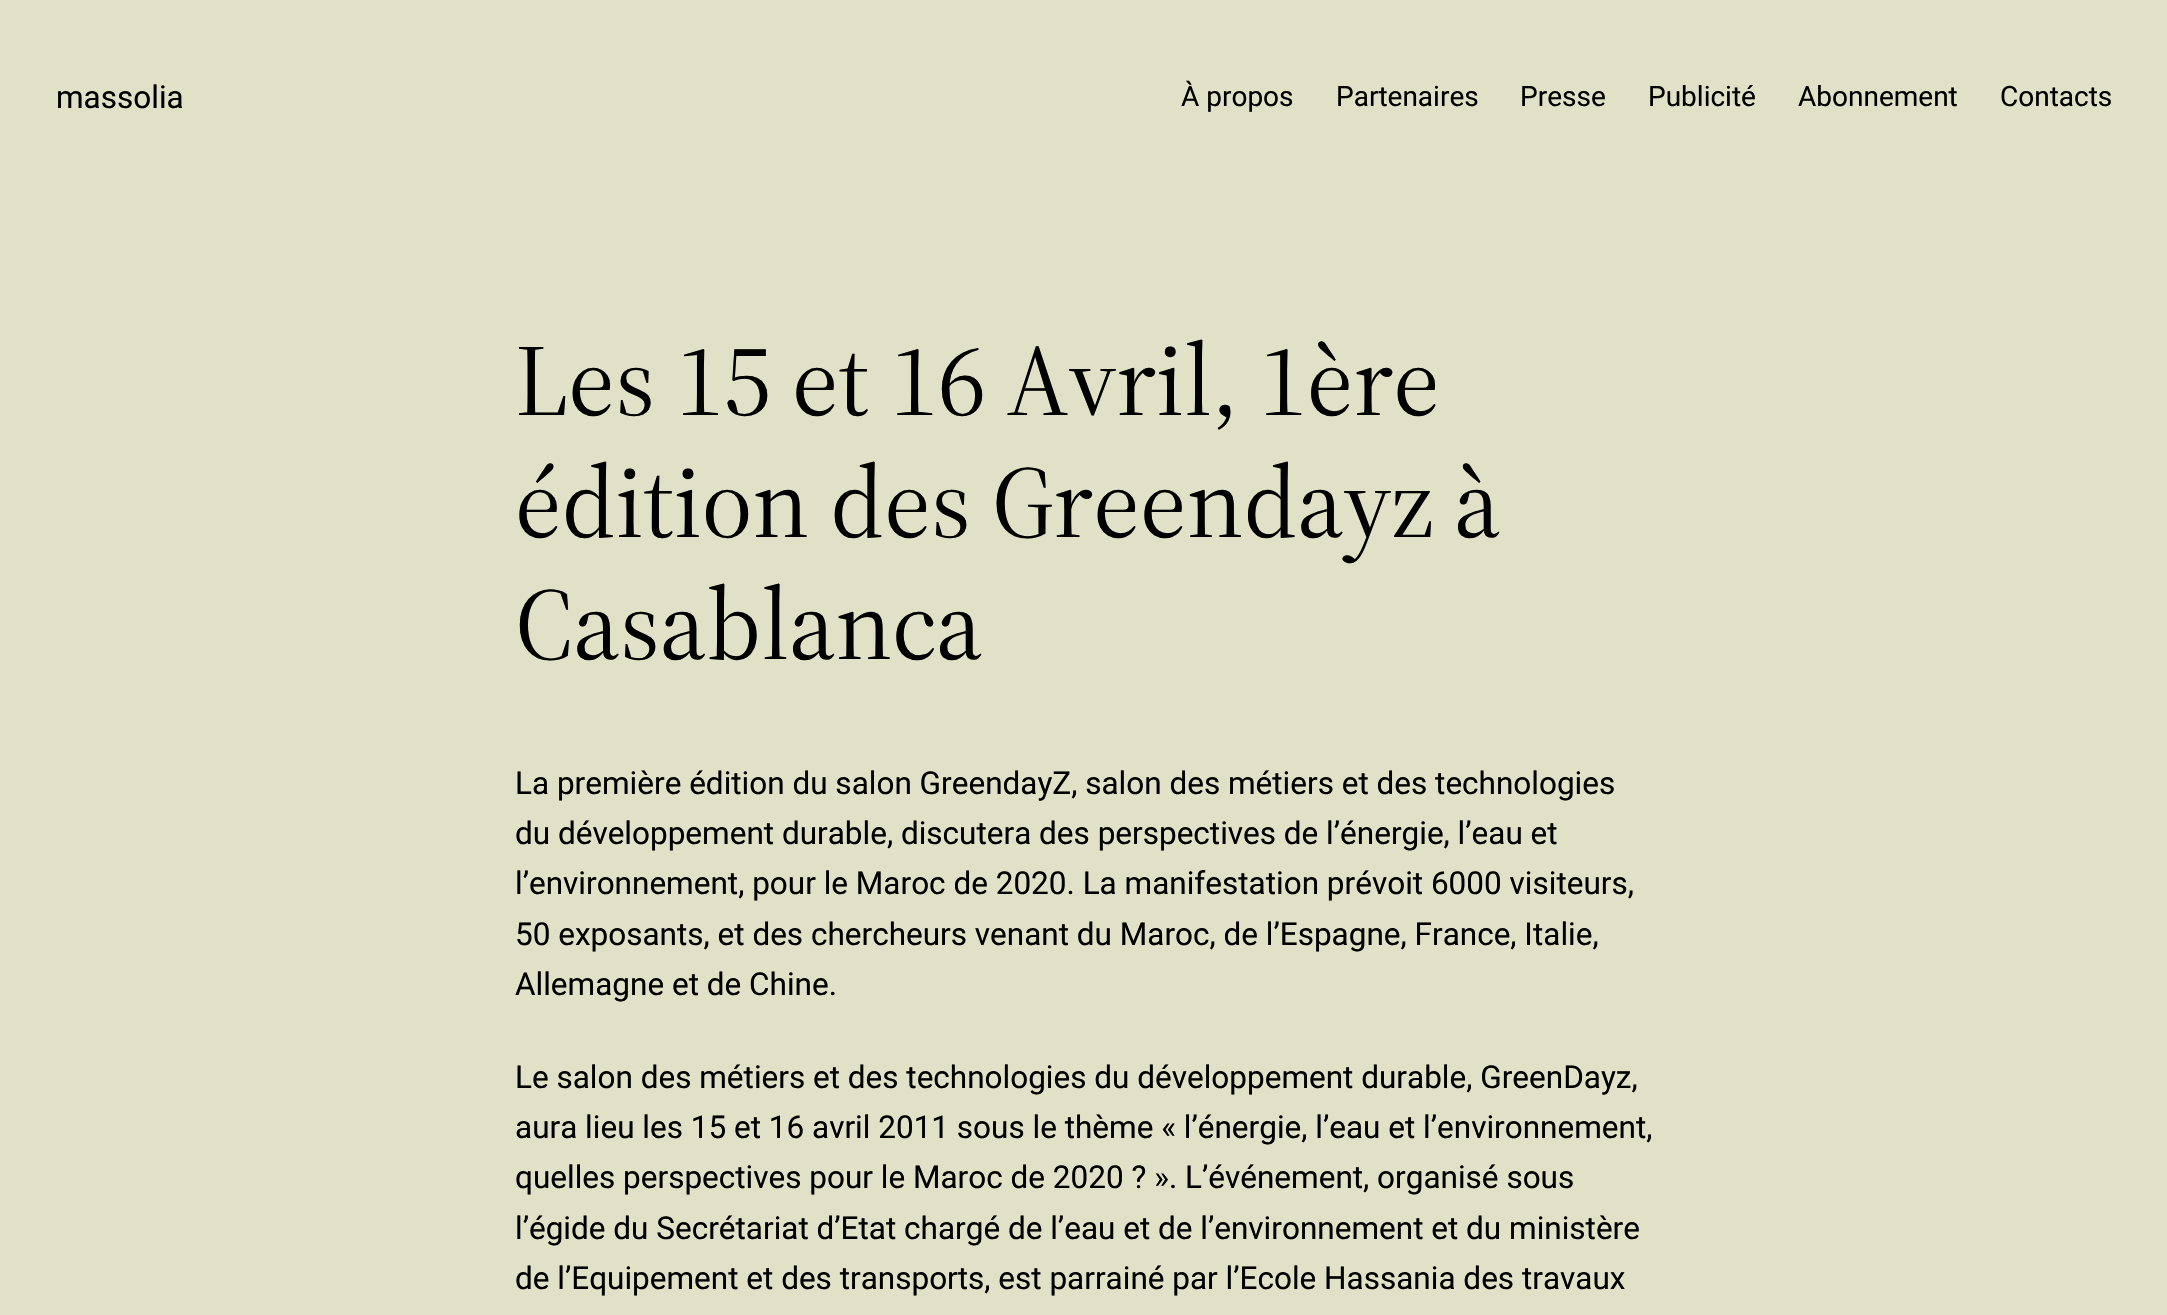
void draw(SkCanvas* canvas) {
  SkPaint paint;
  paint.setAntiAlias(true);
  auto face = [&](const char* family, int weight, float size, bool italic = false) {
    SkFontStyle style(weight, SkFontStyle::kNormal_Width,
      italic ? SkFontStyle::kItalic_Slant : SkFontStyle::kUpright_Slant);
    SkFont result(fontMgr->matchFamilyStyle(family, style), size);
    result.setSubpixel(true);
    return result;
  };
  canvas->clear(0xffe1e1c7);
  auto f0 = face("Roboto", 400, 31.5f);
  paint.setColor(0xff000000);
  canvas->drawString("massolia", 56, 108, f0, paint);
  auto f1 = face("Roboto", 400, 28);
  {
    const struct { const char* s; float x, y; } items[] = {
      {"À propos", 1181, 106},
      {"Partenaires", 1336, 106},
      {"Presse", 1520, 106},
      {"Publicité", 1648, 106},
      {"Abonnement", 1798, 106},
      {"Contacts", 2000, 106},
    };
    for (auto [s, x, y] : items) {
      canvas->drawString(s, x, y, f1, paint);
    }
  }
  auto f2 = face("Source Serif 4", 400, 101.5f);
  {
    const struct { const char* s; float x, y; } items[] = {
      {"Les 15 et 16 Avril, 1ère", 515, 415},
      {"édition des Greendayz à", 515, 537},
      {"Casablanca", 515, 659},
    };
    for (auto [s, x, y] : items) {
      canvas->drawString(s, x, y, f2, paint);
    }
  }
  {
    const struct { const char* s; float x, y; } items[] = {
      {"La première édition du salon GreendayZ, salon des métiers et des technologies", 515, 794},
      {"du développement durable, discutera des perspectives de l’énergie, l’eau et", 515, 844},
      {"l’environnement, pour le Maroc de 2020. La manifestation prévoit 6000 visiteurs,", 515, 894},
      {"50 exposants, et des chercheurs venant du Maroc, de l’Espagne, France, Italie,", 515, 945},
      {"Allemagne et de Chine.", 515, 995},
      {"Le salon des métiers et des technologies du développement durable, GreenDayz,", 515, 1088},
      {"aura lieu les 15 et 16 avril 2011 sous le thème « l’énergie, l’eau et l’environnement,", 515, 1138},
      {"quelles perspectives pour le Maroc de 2020 ? ». L’événement, organisé sous", 515, 1188},
      {"l’égide du Secrétariat d’Etat chargé de l’eau et de l’environnement et du ministère", 515, 1239},
      {"de l’Equipement et des transports, est parrainé par l’Ecole Hassania des travaux", 515, 1289},
    };
    for (auto [s, x, y] : items) {
      canvas->drawString(s, x, y, f0, paint);
    }
  }
}
